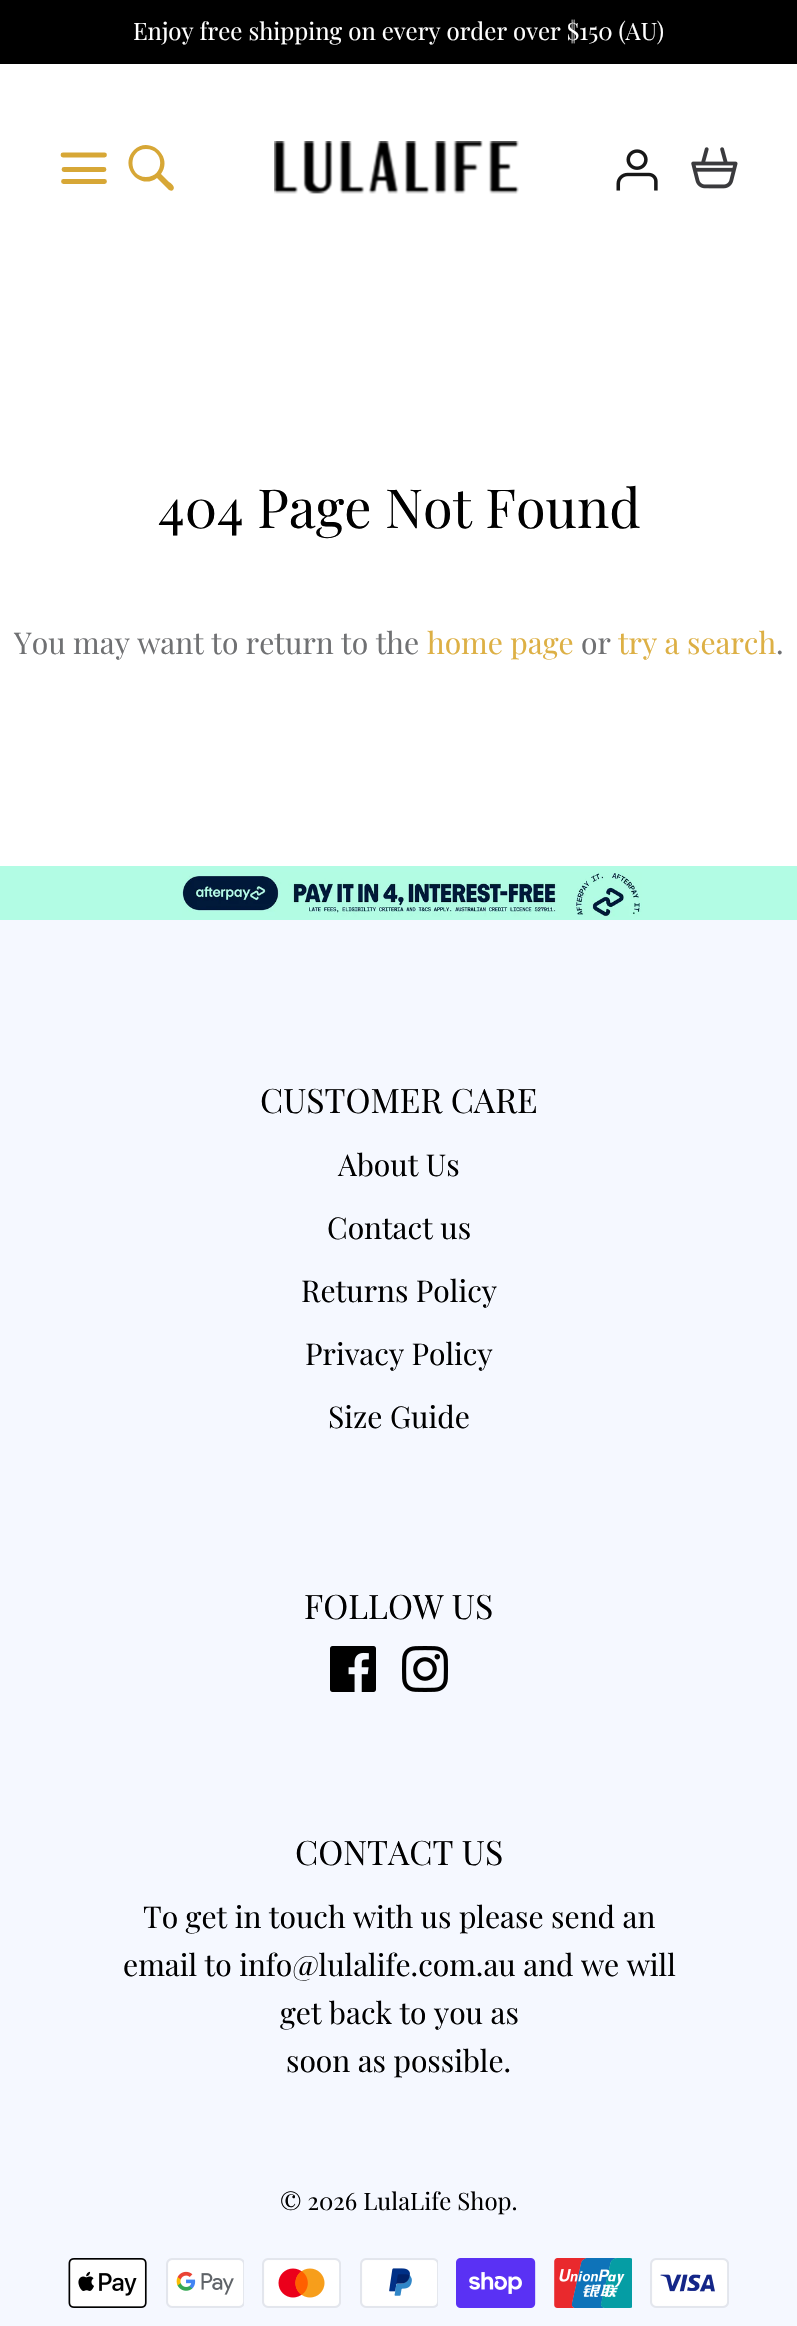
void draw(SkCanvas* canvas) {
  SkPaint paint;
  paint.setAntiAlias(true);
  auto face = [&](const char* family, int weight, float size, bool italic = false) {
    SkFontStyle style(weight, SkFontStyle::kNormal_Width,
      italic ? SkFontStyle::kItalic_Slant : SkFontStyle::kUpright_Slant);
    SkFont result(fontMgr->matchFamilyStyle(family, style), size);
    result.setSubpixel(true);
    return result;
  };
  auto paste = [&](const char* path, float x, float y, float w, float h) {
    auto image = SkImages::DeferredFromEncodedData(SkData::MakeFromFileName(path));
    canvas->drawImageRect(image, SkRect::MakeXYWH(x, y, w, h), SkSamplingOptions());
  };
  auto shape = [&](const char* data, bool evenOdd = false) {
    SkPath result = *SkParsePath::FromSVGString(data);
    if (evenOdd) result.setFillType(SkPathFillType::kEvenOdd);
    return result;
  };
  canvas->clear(0xffffffff);
  paint.setColor(0xff000000);
  canvas->drawRect(SkRect::MakeXYWH(0, 0, 797, 64), paint);
  paint.setStroke(true);
  paint.setStrokeWidth(4.8f);
  paint.setStrokeCap(SkPaint::kRound_Cap);
  paint.setColor(0xffd7a736);
  canvas->drawPath(shape("M63 155H104.5M64 169.5H104M63.5 181.5H104.5"), paint);
  paint.setStroke(false);
  canvas->drawPath(shape("M157 178C140 191 118 166 134 150C149 135 174 156 161 174L169 182C171 183 176 187 173 190C172 191 171 191 169 190ZM146 177C165 177 165 149 146 149C128 149 128 177 146 177Z"), paint);
  paste("img/1.png", 274, 141, 245, 53);
  paste("img/2.png", 616, 149, 42, 42);
  paste("img/3.png", 691, 147, 47, 42);
  paint.setColor(0xfff5f8ff);
  canvas->drawRect(SkRect::MakeXYWH(0, 920, 797, 1406), paint);
  paint.setColor(0xffb2fce4);
  canvas->drawRect(SkRect::MakeXYWH(0, 866, 797, 54), paint);
  paste("img/4.png", 182, 872, 460, 45);
  paste("img/5.png", 330, 1646, 46, 46);
  paste("img/6.png", 402, 1646, 46, 46);
  paste("img/7.png", 68, 2258, 79, 50);
  paste("img/8.png", 166, 2258, 78, 50);
  paste("img/9.png", 262, 2258, 79, 50);
  paste("img/10.png", 360, 2258, 78, 50);
  paste("img/11.png", 456, 2258, 80, 50);
  paste("img/12.png", 554, 2258, 78, 50);
  paste("img/13.png", 650, 2258, 79, 50);
  auto f0 = face("Playfair Display", 400, 24);
  paint.setColor(0xffffffff);
  canvas->drawString("Enjoy free shipping on every order over $150 (AU)", 133, 40, f0, paint);
  auto f1 = face("Playfair Display", 400, 54);
  paint.setColor(0xff000000);
  canvas->drawString("404 Page Not Found", 158, 528, f1, paint);
  auto f2 = face("Playfair Display", 400, 30);
  paint.setColor(0xff707173);
  canvas->drawString("You may want to return to the", 14, 654, f2, paint);
  paint.setColor(0xffddb045);
  canvas->drawString("home page", 427, 654, f2, paint);
  paint.setColor(0xff707173);
  canvas->drawString("or", 581, 654, f2, paint);
  paint.setColor(0xffddb045);
  canvas->drawString("try a search", 618, 654, f2, paint);
  paint.setColor(0xff707173);
  canvas->drawString(".", 776, 654, f2, paint);
  auto f3 = face("Playfair Display", 400, 33.75f);
  paint.setColor(0xff000000);
  canvas->drawString("CUSTOMER CARE", 260, 1113, f3, paint);
  {
    const struct { const char* s; float x, y; } items[] = {
      {"About Us", 338, 1176},
      {"Contact us", 327, 1239},
      {"Returns Policy", 301, 1302},
      {"Privacy Policy", 305, 1365},
      {"Size Guide", 328, 1428},
    };
    for (auto [s, x, y] : items) {
      canvas->drawString(s, x, y, f2, paint);
    }
  }
  canvas->drawString("FOLLOW US", 304, 1619, f3, paint);
  canvas->drawString("CONTACT US", 295, 1865, f3, paint);
  {
    const struct { const char* s; float x, y; } items[] = {
      {"To get in touch with us please send an", 143, 1928},
      {"email to info@lulalife.com.au and we will", 123, 1976},
      {"get back to you as", 280, 2024},
      {"soon as possible.", 286, 2072},
    };
    for (auto [s, x, y] : items) {
      canvas->drawString(s, x, y, f2, paint);
    }
  }
  canvas->drawString("© 2026 LulaLife Shop.", 280, 2210, f0, paint);
}
